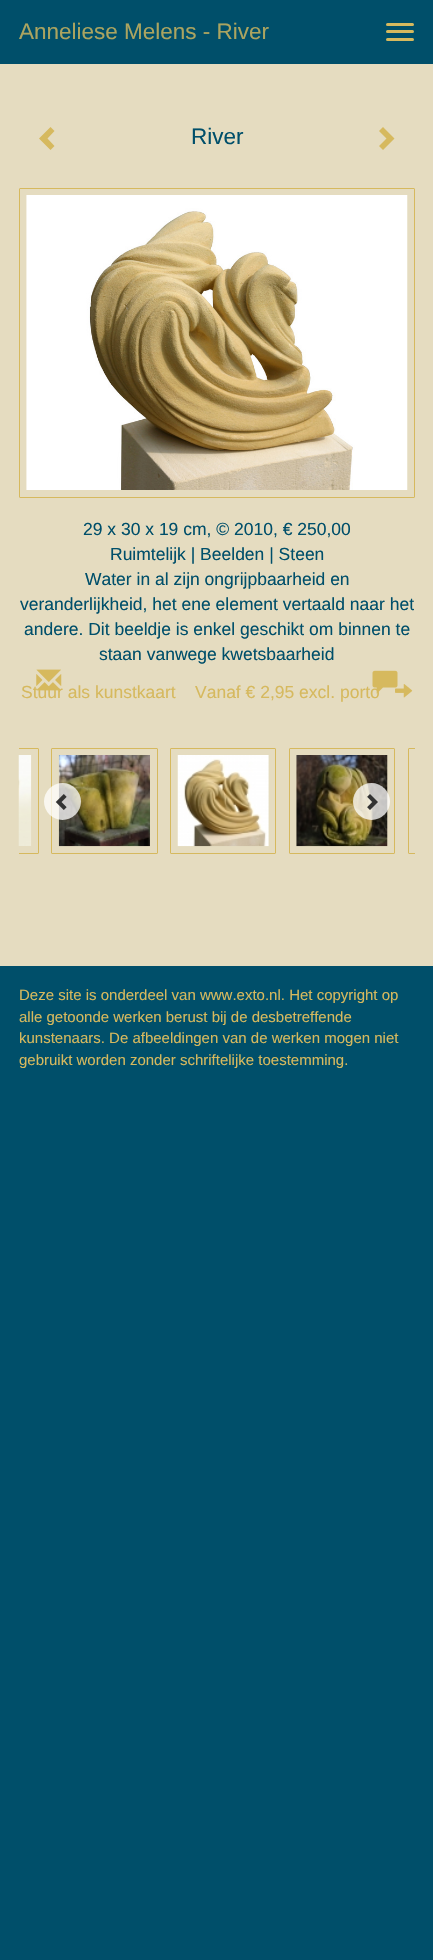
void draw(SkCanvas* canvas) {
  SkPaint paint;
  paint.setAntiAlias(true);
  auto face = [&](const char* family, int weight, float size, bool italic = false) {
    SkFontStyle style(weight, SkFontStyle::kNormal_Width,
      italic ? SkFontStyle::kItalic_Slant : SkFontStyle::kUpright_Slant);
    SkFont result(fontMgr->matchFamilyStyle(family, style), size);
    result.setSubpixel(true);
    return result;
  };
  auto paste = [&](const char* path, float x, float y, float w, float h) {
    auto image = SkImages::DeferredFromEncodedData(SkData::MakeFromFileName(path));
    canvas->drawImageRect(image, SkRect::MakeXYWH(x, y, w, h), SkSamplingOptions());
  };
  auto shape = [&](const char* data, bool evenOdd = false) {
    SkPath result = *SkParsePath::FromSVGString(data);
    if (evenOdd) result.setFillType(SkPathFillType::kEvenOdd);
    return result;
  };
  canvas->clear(0xff004f6a);
  paint.setColor(0xffd6b95e);
  canvas->drawRoundRect(SkRect::MakeXYWH(386, 23, 28, 3), 1.5f, 1.5f, paint);
  canvas->drawRoundRect(SkRect::MakeXYWH(386, 30, 28, 3), 1.5f, 1.5f, paint);
  canvas->drawRoundRect(SkRect::MakeXYWH(386, 38, 28, 3), 1.5f, 1.5f, paint);
  paint.setColor(0xffe5dcc0);
  canvas->drawRect(SkRect::MakeXYWH(0, 64, 433, 902), paint);
  paint.setColor(0xffd6b95e);
  canvas->drawPath(shape("M54.5 131L47.5 138.5L54.5 146L50.5 150L39 138.5L50.5 127Z"), paint);
  canvas->drawPath(shape("M394.5 138.5L383 150L379 146L386.5 138.5L379 131L383 127Z"), paint);
  paint.setStroke(true);
  paint.setStrokeWidth(1);
  canvas->drawRoundRect(SkRect::MakeXYWH(19.5f, 188.5f, 395, 309), 0.5f, 0.5f, paint);
  paste("img/1.png", 26, 195, 382, 295);
  canvas->save();
  canvas->clipRect(SkRect::MakeXYWH(19, 741, 396, 119));
  canvas->drawRoundRect(SkRect::MakeXYWH(-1.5f, 748.5f, 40, 105), 0.5f, 0.5f, paint);
  canvas->restore();
  paste("img/5.png", 18, 755, 14, 91);
  canvas->drawRoundRect(SkRect::MakeXYWH(51.5f, 748.5f, 106, 105), 0.5f, 0.5f, paint);
  paste("img/6.png", 58, 755, 92, 92);
  canvas->drawRoundRect(SkRect::MakeXYWH(170.5f, 748.5f, 105, 105), 0.5f, 0.5f, paint);
  paste("img/7.png", 177, 755, 92, 92);
  canvas->drawRoundRect(SkRect::MakeXYWH(289.5f, 748.5f, 105, 105), 0.5f, 0.5f, paint);
  paste("img/8.png", 296, 755, 92, 92);
  canvas->save();
  canvas->clipRect(SkRect::MakeXYWH(19, 741, 396, 119));
  canvas->drawRoundRect(SkRect::MakeXYWH(408.5f, 748.5f, 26, 105), 0.5f, 0.5f, paint);
  canvas->restore();
  paint.setStroke(false);
  paint.setColor(0xbfffffff);
  canvas->drawCircle(62.5f, 801.5f, 18.5f, paint);
  paste("img/9.png", 55, 794, 12, 16);
  canvas->drawCircle(371.5f, 801.5f, 18.5f, paint);
  paste("img/10.png", 367, 794, 11, 16);
  auto f0 = face("Liberation Sans", 400, 22.5f);
  paint.setColor(0xffaba460);
  canvas->drawString("Anneliese Melens - River", 19, 39, f0, paint);
  paint.setColor(0xff004f6a);
  canvas->drawString("River", 191, 144, f0, paint);
  auto f1 = face("Liberation Sans", 400, 17.5f);
  {
    const struct { const char* s; float x, y; } items[] = {
      {"29 x 30 x 19 cm, © 2010, € 250,00", 83, 535},
      {"Ruimtelijk | Beelden | Steen", 110, 560},
      {"Water in al zijn ongrijpbaarheid en", 85, 585},
      {"veranderlijkheid, het ene element vertaald naar het", 20, 610},
      {"andere. Dit beeldje is enkel geschikt om binnen te", 24, 635},
      {"staan vanwege kwetsbaarheid", 99, 660},
    };
    for (auto [s, x, y] : items) {
      canvas->drawString(s, x, y, f1, paint);
    }
  }
  paint.setColor(0xffd6b95e);
  canvas->drawString("Stuur als kunstkaart", 21, 698, f1, paint);
  paste("img/2.png", 36, 669, 26, 22);
  canvas->drawString("Vanaf € 2,95 excl. porto", 195, 698, f1, paint);
  paste("img/3.png", 372, 670, 26, 24);
  paste("img/4.png", 395, 684, 18, 14);
  auto f2 = face("Liberation Sans", 400, 15);
  {
    const struct { const char* s; float x, y; } items[] = {
      {"Deze site is onderdeel van www.exto.nl. Het copyright op", 19, 1000},
      {"alle getoonde werken berust bij de desbetreffende", 19, 1022},
      {"kunstenaars. De afbeeldingen van de werken mogen niet", 19, 1043},
      {"gebruikt worden zonder schriftelijke toestemming.", 19, 1065},
    };
    for (auto [s, x, y] : items) {
      canvas->drawString(s, x, y, f2, paint);
    }
  }
}
